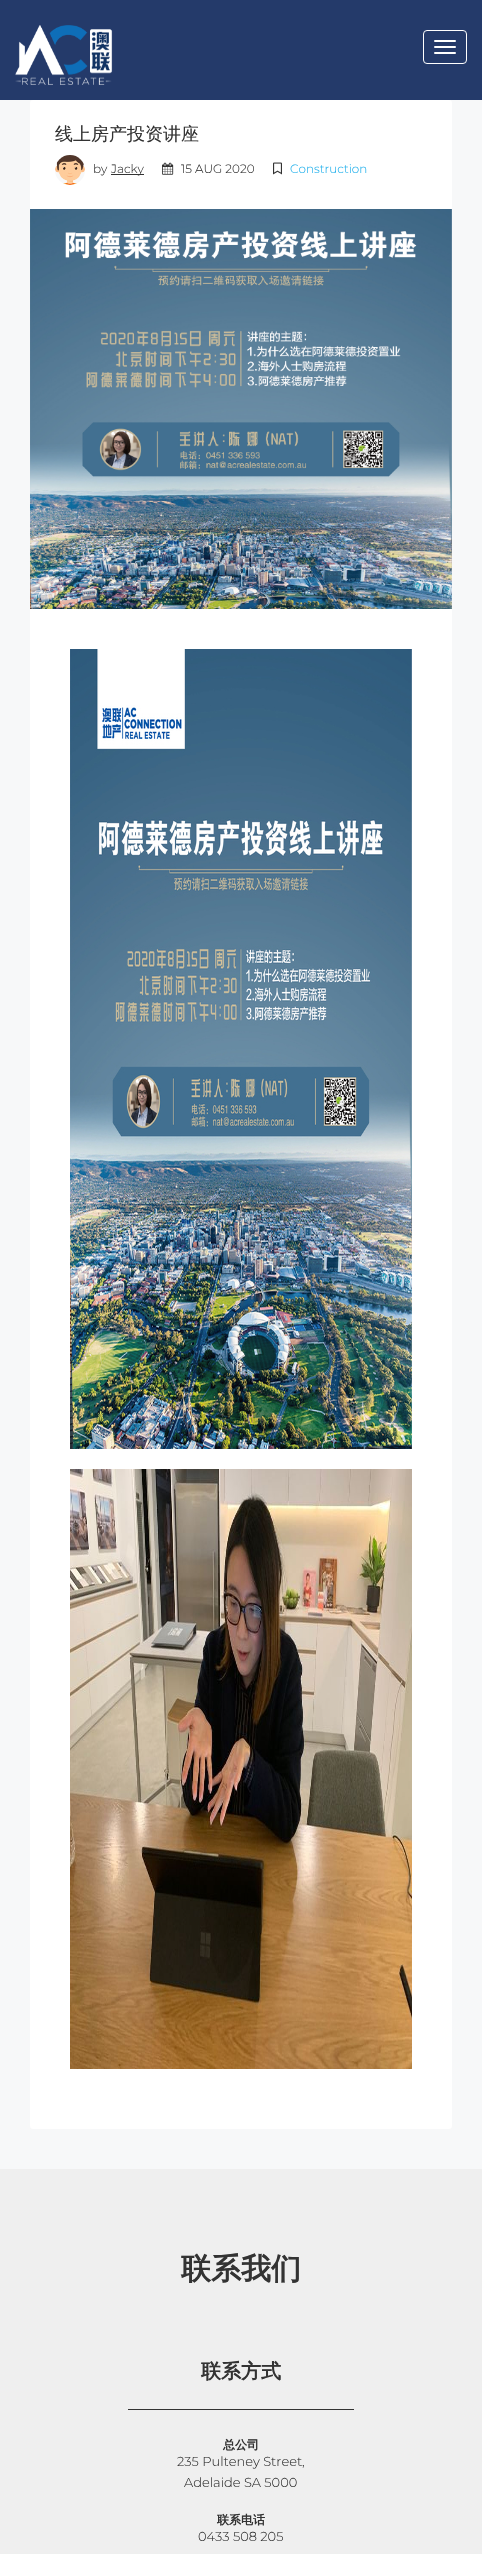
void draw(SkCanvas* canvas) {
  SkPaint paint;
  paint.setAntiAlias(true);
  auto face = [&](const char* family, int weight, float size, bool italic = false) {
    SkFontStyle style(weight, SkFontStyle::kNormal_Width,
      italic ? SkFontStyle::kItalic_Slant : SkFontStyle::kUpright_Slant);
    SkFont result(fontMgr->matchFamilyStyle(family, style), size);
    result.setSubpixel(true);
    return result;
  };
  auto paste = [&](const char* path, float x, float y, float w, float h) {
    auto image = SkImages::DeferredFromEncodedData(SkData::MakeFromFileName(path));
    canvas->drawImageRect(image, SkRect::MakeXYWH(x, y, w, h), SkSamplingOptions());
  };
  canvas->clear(0xff243a6a);
  paste("img/1.png", 15, 25, 98, 60);
  paint.setStroke(true);
  paint.setStrokeWidth(1);
  paint.setColor(0xffffffff);
  canvas->drawRoundRect(SkRect::MakeXYWH(423.5f, 30.5f, 43, 33), 3.5f, 3.5f, paint);
  paint.setStroke(false);
  canvas->drawRoundRect(SkRect::MakeXYWH(434, 40, 22, 2), 1, 1, paint);
  canvas->drawRoundRect(SkRect::MakeXYWH(434, 46, 22, 2), 1, 1, paint);
  canvas->drawRoundRect(SkRect::MakeXYWH(434, 52, 22, 2), 1, 1, paint);
  paint.setColor(0xfff7f8f9);
  canvas->drawRect(SkRect::MakeXYWH(0, 100, 482, 2069), paint);
  paint.setColor(0xffffffff);
  canvas->drawRoundRect(SkRect::MakeXYWH(30, 100, 422, 2029), 3, 3, paint);
  paint.setColor(0xfff7f8f9);
  canvas->drawCircle(70, 170, 15, paint);
  paste("img/2.png", 55, 155, 30, 30);
  paint.setColor(0xff333333);
  canvas->drawRect(SkRect::MakeXYWH(111, 174, 33, 1), paint);
  paste("img/3.png", 162, 162, 12, 13);
  paste("img/4.png", 273, 162, 9, 13);
  paste("img/5.png", 30, 209, 422, 400);
  paste("img/6.png", 70, 649, 342, 800);
  paste("img/7.png", 70, 1469, 342, 600);
  paint.setColor(0xffefefef);
  canvas->drawRect(SkRect::MakeXYWH(0, 2169, 482, 385), paint);
  paint.setColor(0xff333333);
  canvas->drawRect(SkRect::MakeXYWH(128, 2409, 226, 1), paint);
  auto f0 = face("WenQuanYi Zen Hei", 500, 18);
  canvas->drawString("线上房产投资讲座", 55, 140, f0, paint);
  auto f1 = face("Montserrat", 300, 12);
  {
    const struct { const char* s; float x, y; } items[] = {
      {"by", 93, 173},
      {"Jacky", 111, 173},
      {"15 AUG 2020", 181, 173},
    };
    for (auto [s, x, y] : items) {
      canvas->drawString(s, x, y, f1, paint);
    }
  }
  paint.setColor(0xff1dafec);
  canvas->drawString("Construction", 290, 173, f1, paint);
  auto f2 = face("WenQuanYi Zen Hei", 700, 30);
  paint.setColor(0xff333333);
  canvas->drawString("联系我们", 181, 2279, f2, paint);
  auto f3 = face("WenQuanYi Zen Hei", 700, 20);
  canvas->drawString("联系方式", 201, 2378, f3, paint);
  auto f4 = face("WenQuanYi Zen Hei", 700, 12);
  canvas->drawString("总公司", 223, 2449, f4, paint);
  auto f5 = face("Montserrat", 300, 13);
  canvas->drawString("235 Pulteney Street,", 177, 2466, f5, paint);
  canvas->drawString("Adelaide SA 5000", 184, 2487, f5, paint);
  canvas->drawString("联系电话", 217, 2524, f4, paint);
  canvas->drawString("0433 508 205", 198, 2541, f5, paint);
}
